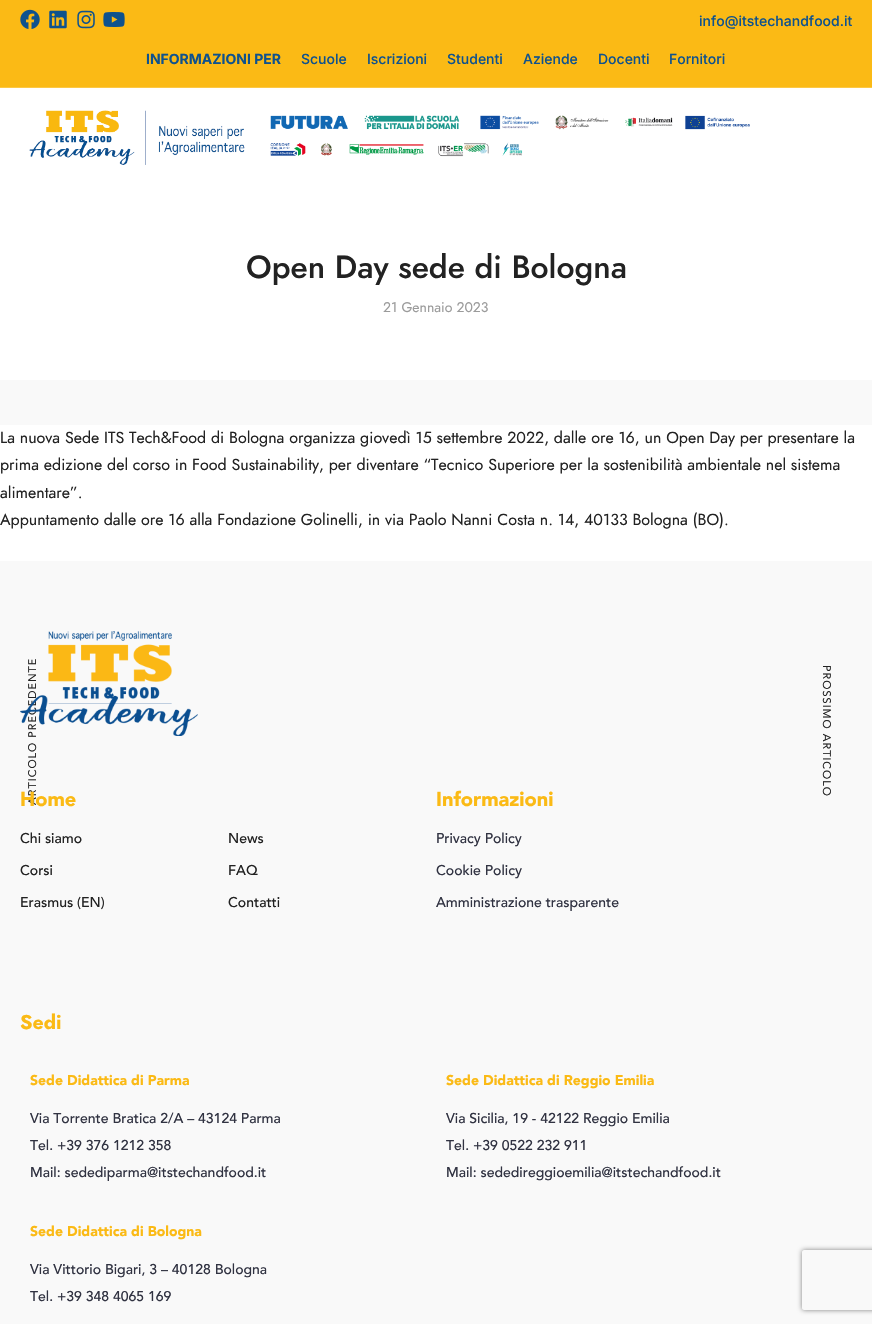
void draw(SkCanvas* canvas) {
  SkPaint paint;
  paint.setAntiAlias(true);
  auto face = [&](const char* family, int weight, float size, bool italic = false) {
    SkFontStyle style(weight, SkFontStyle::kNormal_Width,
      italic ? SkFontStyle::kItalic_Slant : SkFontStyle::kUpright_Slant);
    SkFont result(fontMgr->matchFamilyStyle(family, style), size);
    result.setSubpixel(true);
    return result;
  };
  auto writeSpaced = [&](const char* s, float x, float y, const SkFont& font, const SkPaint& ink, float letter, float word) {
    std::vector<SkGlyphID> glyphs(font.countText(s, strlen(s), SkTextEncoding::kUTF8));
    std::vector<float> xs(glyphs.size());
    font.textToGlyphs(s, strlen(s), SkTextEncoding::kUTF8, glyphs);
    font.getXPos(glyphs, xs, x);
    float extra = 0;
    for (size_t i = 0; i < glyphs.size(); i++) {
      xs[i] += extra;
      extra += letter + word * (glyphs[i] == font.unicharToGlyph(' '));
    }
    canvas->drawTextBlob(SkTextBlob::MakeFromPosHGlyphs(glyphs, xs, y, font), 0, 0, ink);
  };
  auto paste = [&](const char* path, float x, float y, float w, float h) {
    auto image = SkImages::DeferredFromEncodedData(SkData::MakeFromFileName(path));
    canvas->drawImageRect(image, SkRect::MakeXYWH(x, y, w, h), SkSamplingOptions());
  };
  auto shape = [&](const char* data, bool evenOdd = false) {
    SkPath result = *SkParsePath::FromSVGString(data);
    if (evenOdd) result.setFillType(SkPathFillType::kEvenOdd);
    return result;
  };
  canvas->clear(0xfff9f9f9);
  paint.setColor(0xfffbba15);
  canvas->drawRect(SkRect::MakeXYWH(0, 0, 872, 87), paint);
  paint.setColor(0xfffcc844);
  canvas->drawRect(SkRect::MakeXYWH(0, 87, 872, 1), paint);
  paste("img/1.png", 20, 9, 20, 20);
  paste("img/2.png", 49, 10, 18, 19);
  paste("img/3.png", 77, 10, 18, 19);
  paste("img/4.png", 103, 12, 22, 15);
  paint.setColor(0xffffffff);
  canvas->drawRect(SkRect::MakeXYWH(0, 88, 872, 292), paint);
  paste("img/5.png", 29, 110, 216, 55);
  paste("img/6.png", 270, 115, 78, 14);
  paste("img/7.png", 364, 115, 96, 15);
  paste("img/8.png", 480, 115, 59, 15);
  paste("img/9.png", 555, 115, 54, 15);
  paste("img/10.png", 625, 117, 48, 10);
  paste("img/11.png", 685, 115, 65, 15);
  paste("img/12.png", 270, 143, 36, 13);
  paste("img/13.png", 321, 143, 11, 13);
  paste("img/14.png", 349, 144, 75, 11);
  paste("img/15.png", 438, 143, 51, 14);
  paste("img/16.png", 502, 142, 21, 14);
  canvas->drawRect(SkRect::MakeXYWH(0, 425, 872, 136), paint);
  canvas->save();
  canvas->clipPath(shape("M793 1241H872V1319H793ZM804 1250H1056C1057 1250 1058 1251 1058 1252V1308C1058 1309 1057 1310 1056 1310H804C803 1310 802 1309 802 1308V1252C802 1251 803 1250 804 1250Z", true), true);
  paint.setColor(0xff808080);
  paint.setMaskFilter(SkMaskFilter::MakeBlur(kNormal_SkBlurStyle, 2.5f));
  canvas->drawRoundRect(SkRect::MakeXYWH(802, 1250, 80, 60), 2, 2, paint);
  paint.setMaskFilter(nullptr);
  canvas->restore();
  auto f0 = face("Inter", 500, 14);
  paint.setColor(0xff0f528d);
  canvas->drawString("info@itstechandfood.it", 699, 26, f0, paint);
  auto f1 = face("Inter", 700, 14);
  canvas->drawString("INFORMAZIONI PER", 146, 64, f1, paint);
  {
    const struct { const char* s; float x, y; } items[] = {
      {"Scuole", 301, 64},
      {"Iscrizioni", 367, 64},
      {"Studenti", 447, 64},
      {"Aziende", 523, 64},
      {"Docenti", 598, 64},
      {"Fornitori", 669, 64},
    };
    for (auto [s, x, y] : items) {
      canvas->drawString(s, x, y, f0, paint);
    }
  }
  auto f2 = face("Jost", 500, 32);
  paint.setColor(0xff222222);
  canvas->drawString("Open Day sede di Bologna", 246, 278, f2, paint);
  auto f3 = face("Jost", 400, 14);
  paint.setColor(0xff9b9b9b);
  canvas->drawString("21 Gennaio 2023", 383, 312, f3, paint);
  auto f4 = face("Jost", 400, 16);
  paint.setColor(0xff222222);
  {
    const struct { const char* s; float x, y; } items[] = {
      {"La nuova Sede ITS Tech&Food di Bologna organizza giovedì 15 settembre 2022, dalle ore 16, un Open Day per presentare la", 0, 443},
      {"prima edizione del corso in Food Sustainability, per diventare “Tecnico Superiore per la sostenibilità ambientale nel sistema", 0, 470},
      {"alimentare”.", 0, 498},
      {"Appuntamento dalle ore 16 alla Fondazione Golinelli, in via Paolo Nanni Costa n. 14, 40133 Bologna (BO).", 0, 525},
    };
    for (auto [s, x, y] : items) {
      canvas->drawString(s, x, y, f4, paint);
    }
  }
  auto f5 = face("Avenir", 400, 11);
  canvas->save();
  canvas->rotate(-90, 36, 805);
  writeSpaced("ARTICOLO PRECEDENTE", 36, 805, f5, paint, 1, 0);
  canvas->restore();
  canvas->save();
  canvas->rotate(90, 823, 665);
  writeSpaced("PROSSIMO ARTICOLO", 823, 665, f5, paint, 1, 0);
  canvas->restore();
  paste("img/17.png", 20, 631, 178, 105);
  auto f6 = face("Avenir", 900, 20);
  paint.setColor(0xfffbba15);
  canvas->drawString("Home", 20, 806, f6, paint);
  auto f7 = face("Avenir", 500, 14);
  paint.setColor(0xff222222);
  {
    const struct { const char* s; float x, y; } items[] = {
      {"Chi siamo", 20, 843},
      {"News", 228, 843},
      {"Corsi", 20, 875},
      {"FAQ", 228, 875},
      {"Erasmus (EN)", 20, 907},
      {"Contatti", 228, 907},
    };
    for (auto [s, x, y] : items) {
      canvas->drawString(s, x, y, f7, paint);
    }
  }
  paint.setColor(0xfffbba15);
  canvas->drawString("Informazioni", 436, 806, f6, paint);
  paint.setColor(0xff313342);
  {
    const struct { const char* s; float x, y; } items[] = {
      {"Privacy Policy", 436, 843},
      {"Cookie Policy", 436, 875},
      {"Amministrazione trasparente", 436, 907},
    };
    for (auto [s, x, y] : items) {
      canvas->drawString(s, x, y, f7, paint);
    }
  }
  auto f8 = face("Jost", 700, 20);
  paint.setColor(0xfffbba15);
  canvas->drawString("Sedi", 20, 1029, f8, paint);
  auto f9 = face("Avenir", 900, 14);
  canvas->drawString("Sede Didattica di Parma", 30, 1085, f9, paint);
  paint.setColor(0xff313342);
  {
    const struct { const char* s; float x, y; } items[] = {
      {"Via Torrente Bratica 2/A – 43124 Parma", 30, 1123},
      {"Tel. +39 376 1212 358", 30, 1150},
      {"Mail: sedediparma@itstechandfood.it", 30, 1177},
    };
    for (auto [s, x, y] : items) {
      canvas->drawString(s, x, y, f7, paint);
    }
  }
  paint.setColor(0xfffbba15);
  canvas->drawString("Sede Didattica di Reggio Emilia", 446, 1085, f9, paint);
  paint.setColor(0xff313342);
  {
    const struct { const char* s; float x, y; } items[] = {
      {"Via Sicilia, 19 - 42122 Reggio Emilia", 446, 1123},
      {"Tel. +39 0522 232 911", 446, 1150},
      {"Mail: sededireggioemilia@itstechandfood.it", 446, 1177},
    };
    for (auto [s, x, y] : items) {
      canvas->drawString(s, x, y, f7, paint);
    }
  }
  paint.setColor(0xfffbba15);
  canvas->drawString("Sede Didattica di Bologna", 30, 1236, f9, paint);
  paint.setColor(0xff313342);
  canvas->drawString("Via Vittorio Bigari, 3 – 40128 Bologna", 30, 1274, f7, paint);
  canvas->drawString("Tel. +39 348 4065 169", 30, 1301, f7, paint);
}
